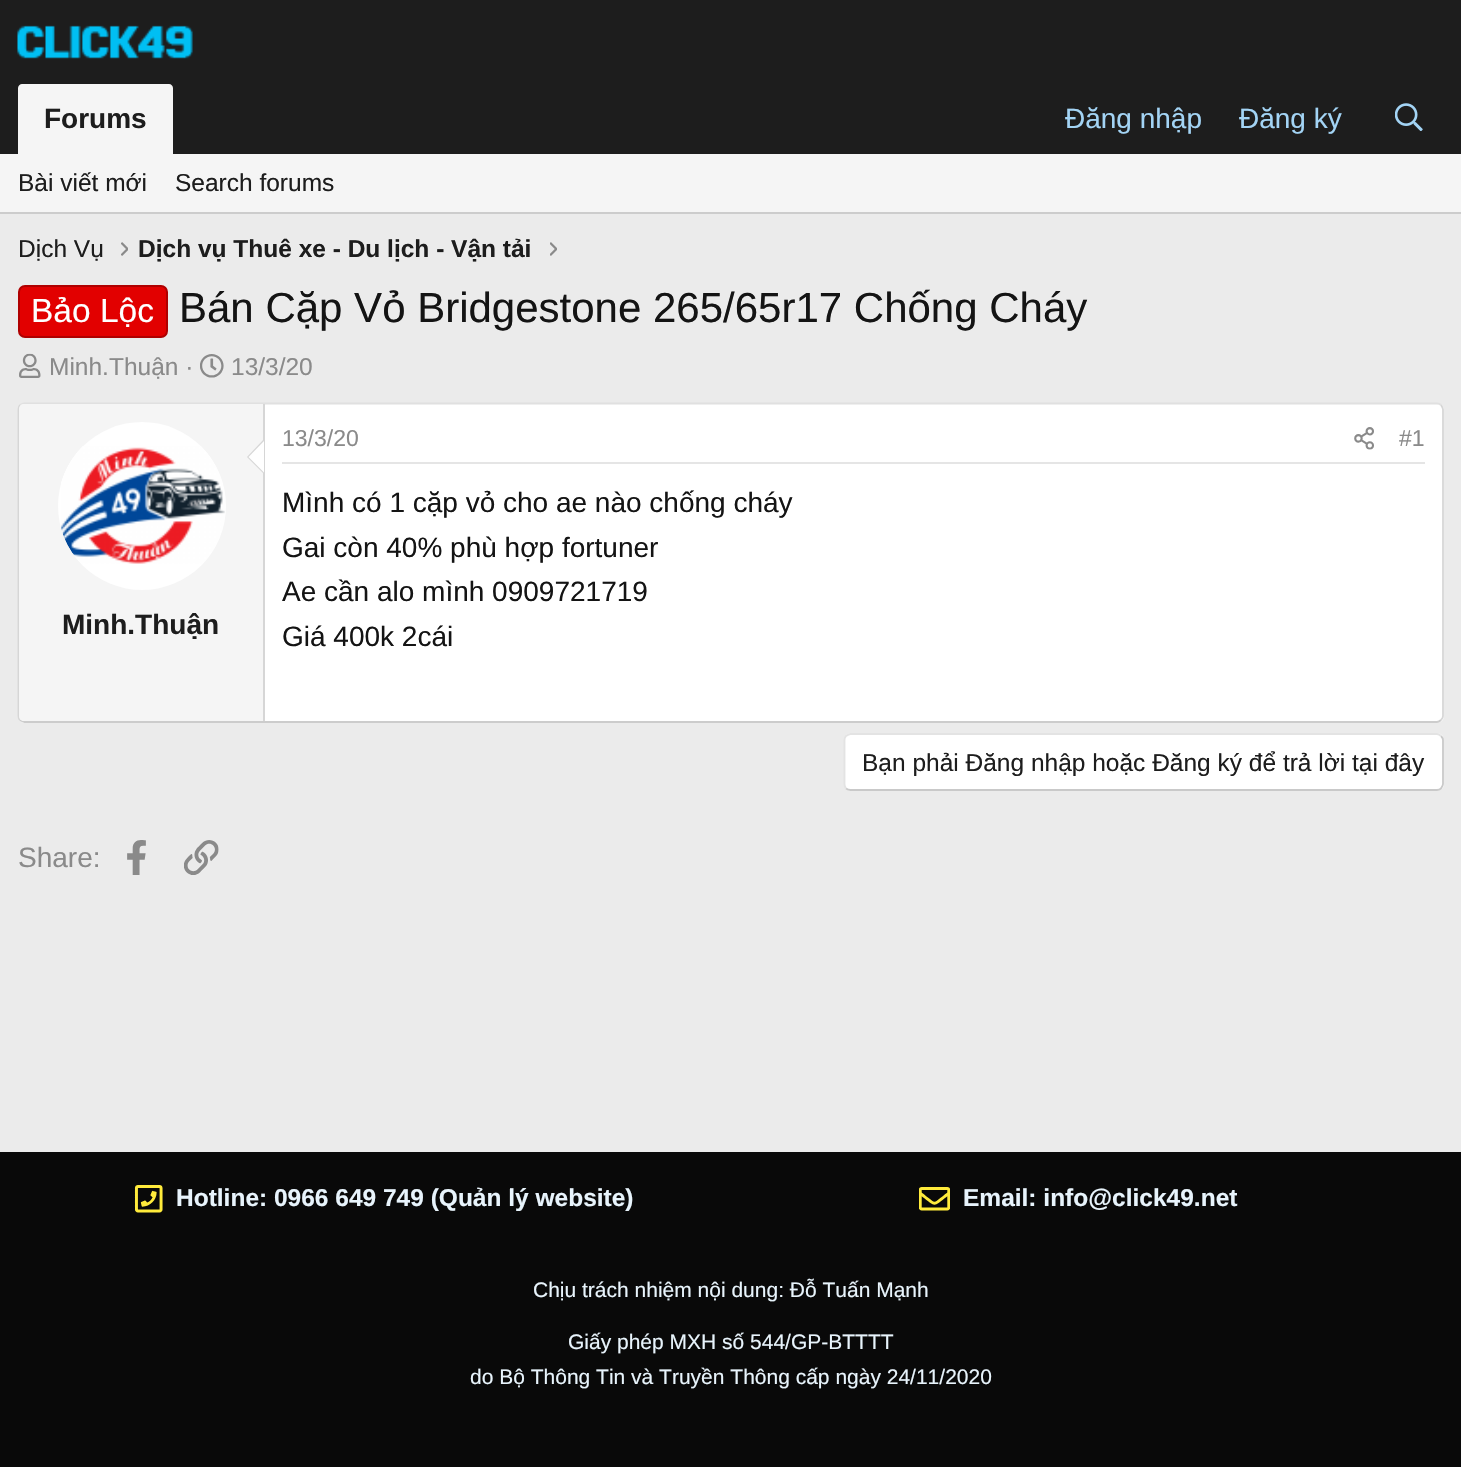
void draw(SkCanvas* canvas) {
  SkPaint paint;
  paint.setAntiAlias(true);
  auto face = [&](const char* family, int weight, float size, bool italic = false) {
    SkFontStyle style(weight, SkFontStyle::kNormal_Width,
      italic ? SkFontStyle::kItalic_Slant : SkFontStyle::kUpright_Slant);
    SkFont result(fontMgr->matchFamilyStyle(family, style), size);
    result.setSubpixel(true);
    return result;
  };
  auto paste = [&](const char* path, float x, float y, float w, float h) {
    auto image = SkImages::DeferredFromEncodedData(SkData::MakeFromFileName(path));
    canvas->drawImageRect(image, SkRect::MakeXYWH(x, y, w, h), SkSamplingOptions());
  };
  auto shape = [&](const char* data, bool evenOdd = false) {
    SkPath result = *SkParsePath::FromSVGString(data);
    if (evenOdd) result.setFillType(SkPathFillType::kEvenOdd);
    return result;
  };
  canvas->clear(0xffebebeb);
  paint.setColor(0xff1d1d1d);
  canvas->drawRect(SkRect::MakeXYWH(0, 0, 1461, 154), paint);
  paste("img/1.png", 17, 25, 176, 34);
  paint.setColor(0xfff5f5f5);
  canvas->drawPath(shape("M22 84H169C171 84 173 86 173 88V154H18V88C18 86 20 84 22 84Z"), paint);
  paste("img/2.png", 1395, 103, 28, 28);
  canvas->drawRect(SkRect::MakeXYWH(0, 154, 1461, 58), paint);
  paint.setColor(0xffcccccc);
  canvas->drawRect(SkRect::MakeXYWH(0, 212, 1461, 2), paint);
  paste("img/3.png", 121, 242, 7, 14);
  paste("img/4.png", 550, 242, 7, 14);
  paint.setColor(0xffe20000);
  canvas->drawRoundRect(SkRect::MakeXYWH(19, 286, 148, 51), 6, 6, paint);
  paint.setStroke(true);
  paint.setStrokeWidth(2);
  paint.setColor(0xffaf0000);
  canvas->drawRoundRect(SkRect::MakeXYWH(19, 286, 148, 51), 6, 6, paint);
  paste("img/5.png", 19, 353, 22, 25);
  paste("img/6.png", 200, 354, 24, 24);
  paint.setStroke(false);
  paint.setColor(0xffffffff);
  canvas->drawRoundRect(SkRect::MakeXYWH(18, 403, 1426, 320), 7, 7, paint);
  paint.setStroke(true);
  paint.setStrokeWidth(1.8f);
  paint.setColor(0xffe0e0e0);
  canvas->drawPath(shape("M20 405C21.5 404 23 403.5 24.5 403.5H1437C1438.5 403.5 1440 404 1441 405"), paint);
  paint.setColor(0xffd6d6d6);
  canvas->drawPath(shape("M1441 405C1442 406.5 1443 408 1443 409.5V716C1443 717.5 1442 719 1441 720"), paint);
  paint.setColor(0xffcccccc);
  canvas->drawPath(shape("M1441 720C1440 721 1438.5 722 1437 722H24.5C23 722 21.5 721 20 720"), paint);
  paint.setColor(0xffd6d6d6);
  canvas->drawPath(shape("M20 720C19 719 18.5 717.5 18.5 716V409.5C18.5 408 19 406.5 20 405"), paint);
  paint.setStroke(false);
  paint.setColor(0xfff5f5f5);
  canvas->drawPath(shape("M24 404H264V721H24C21 721 19 719 19 716V409C19 406 21 404 24 404Z"), paint);
  paint.setColor(0xffd6d6d6);
  canvas->drawRect(SkRect::MakeXYWH(263, 404, 2, 317), paint);
  paint.setColor(0xffffffff);
  canvas->drawCircle(142, 506, 84, paint);
  paste("img/7.png", 61, 446, 164, 118);
  paint.setColor(0xffd6d6d6);
  canvas->drawPath(shape("M264 439V474L247 457Z"), paint);
  paint.setColor(0xffffffff);
  canvas->drawPath(shape("M264 441V472.5L248.5 457Z"), paint);
  paint.setColor(0xffe5e5e5);
  canvas->drawRect(SkRect::MakeXYWH(282, 462, 1143, 2), paint);
  paste("img/8.png", 1354, 427, 20, 23);
  paint.setColor(0xffffffff);
  canvas->drawRoundRect(SkRect::MakeXYWH(844, 733, 600, 58), 7, 7, paint);
  paint.setStroke(true);
  paint.setColor(0xffc9c9c9);
  canvas->drawPath(shape("M1441 736C1442 737 1443 738.5 1443 740V784C1443 785.5 1442 787 1441 788.5C1440 789.5 1438.5 790 1437 790H850.5C849 790 847.5 789.5 846 788.5"), paint);
  paint.setColor(0xffe3e3e3);
  canvas->drawPath(shape("M846 788.5C845 787 844.5 785.5 844.5 784V740C844.5 738.5 845 737 846 736C847.5 735 849 734 850.5 734H1437C1438.5 734 1440 735 1441 736"), paint);
  paste("img/9.png", 127, 840, 19, 35);
  paste("img/10.png", 184, 840, 35, 35);
  paint.setStroke(false);
  paint.setColor(0xff090909);
  canvas->drawRect(SkRect::MakeXYWH(0, 1152, 1461, 315), paint);
  paste("img/11.png", 134, 1185, 29, 28);
  paste("img/12.png", 919, 1187, 31, 24);
  auto f0 = face("Liberation Sans", 700, 28);
  paint.setColor(0xff1d1d1d);
  canvas->drawString("Forums", 44, 128, f0, paint);
  auto f1 = face("Liberation Sans", 400, 28);
  paint.setColor(0xffa3d4f5);
  canvas->drawString("Đăng nhập", 1065, 128, f1, paint);
  canvas->drawString("Đăng ký", 1239, 128, f1, paint);
  auto f2 = face("Liberation Sans", 400, 24.5f);
  paint.setColor(0xff1d1d1d);
  {
    const struct { const char* s; float x, y; } items[] = {
      {"Bài viết mới", 18, 191},
      {"Search forums", 175, 191},
      {"Dịch Vụ", 18, 257},
    };
    for (auto [s, x, y] : items) {
      canvas->drawString(s, x, y, f2, paint);
    }
  }
  auto f3 = face("Liberation Sans", 700, 24.5f);
  canvas->drawString("Dịch vụ Thuê xe - Du lịch - Vận tải", 138, 257, f3, paint);
  auto f4 = face("Liberation Sans", 400, 33.5f);
  paint.setColor(0xffffffff);
  canvas->drawString("Bảo Lộc", 31, 322, f4, paint);
  auto f5 = face("Liberation Sans", 400, 42);
  paint.setColor(0xff141414);
  canvas->drawString("Bán Cặp Vỏ Bridgestone 265/65r17 Chống Cháy", 179, 322, f5, paint);
  paint.setColor(0xff8a8a8a);
  canvas->drawString("Minh.Thuận ·", 49, 375, f2, paint);
  canvas->drawString("13/3/20", 231, 375, f2, paint);
  paint.setColor(0xff1d1d1d);
  canvas->drawString("Minh.Thuận", 62, 634, f0, paint);
  auto f6 = face("Liberation Sans", 400, 23);
  paint.setColor(0xff8a8a8a);
  canvas->drawString("13/3/20", 282, 446, f6, paint);
  canvas->drawString("#1", 1399, 446, f6, paint);
  paint.setColor(0xff141414);
  {
    const struct { const char* s; float x, y; } items[] = {
      {"Mình có 1 cặp vỏ cho ae nào chống cháy", 282, 512},
      {"Gai còn 40% phù hợp fortuner", 282, 557},
      {"Ae cần alo mình 0909721719", 282, 601},
      {"Giá 400k 2cái", 282, 646},
    };
    for (auto [s, x, y] : items) {
      canvas->drawString(s, x, y, f1, paint);
    }
  }
  paint.setColor(0xff1d1d1d);
  canvas->drawString("Bạn phải Đăng nhập hoặc Đăng ký để trả lời tại đây", 862, 771, f2, paint);
  paint.setColor(0xff8a8a8a);
  canvas->drawString("Share:", 18, 867, f1, paint);
  paint.setColor(0xffe8f4fc);
  canvas->drawString("Hotline: 0966 649 749 (Quản lý website)", 176, 1206, f3, paint);
  canvas->drawString("Email: info@click49.net", 963, 1206, f3, paint);
  auto f7 = face("Liberation Sans", 400, 21);
  {
    const struct { const char* s; float x, y; } items[] = {
      {"Chịu trách nhiệm nội dung: Đỗ Tuấn Mạnh", 533, 1297},
      {"Giấy phép MXH số 544/GP-BTTTT", 568, 1349},
      {"do Bộ Thông Tin và Truyền Thông cấp ngày 24/11/2020", 470, 1384},
    };
    for (auto [s, x, y] : items) {
      canvas->drawString(s, x, y, f7, paint);
    }
  }
}
